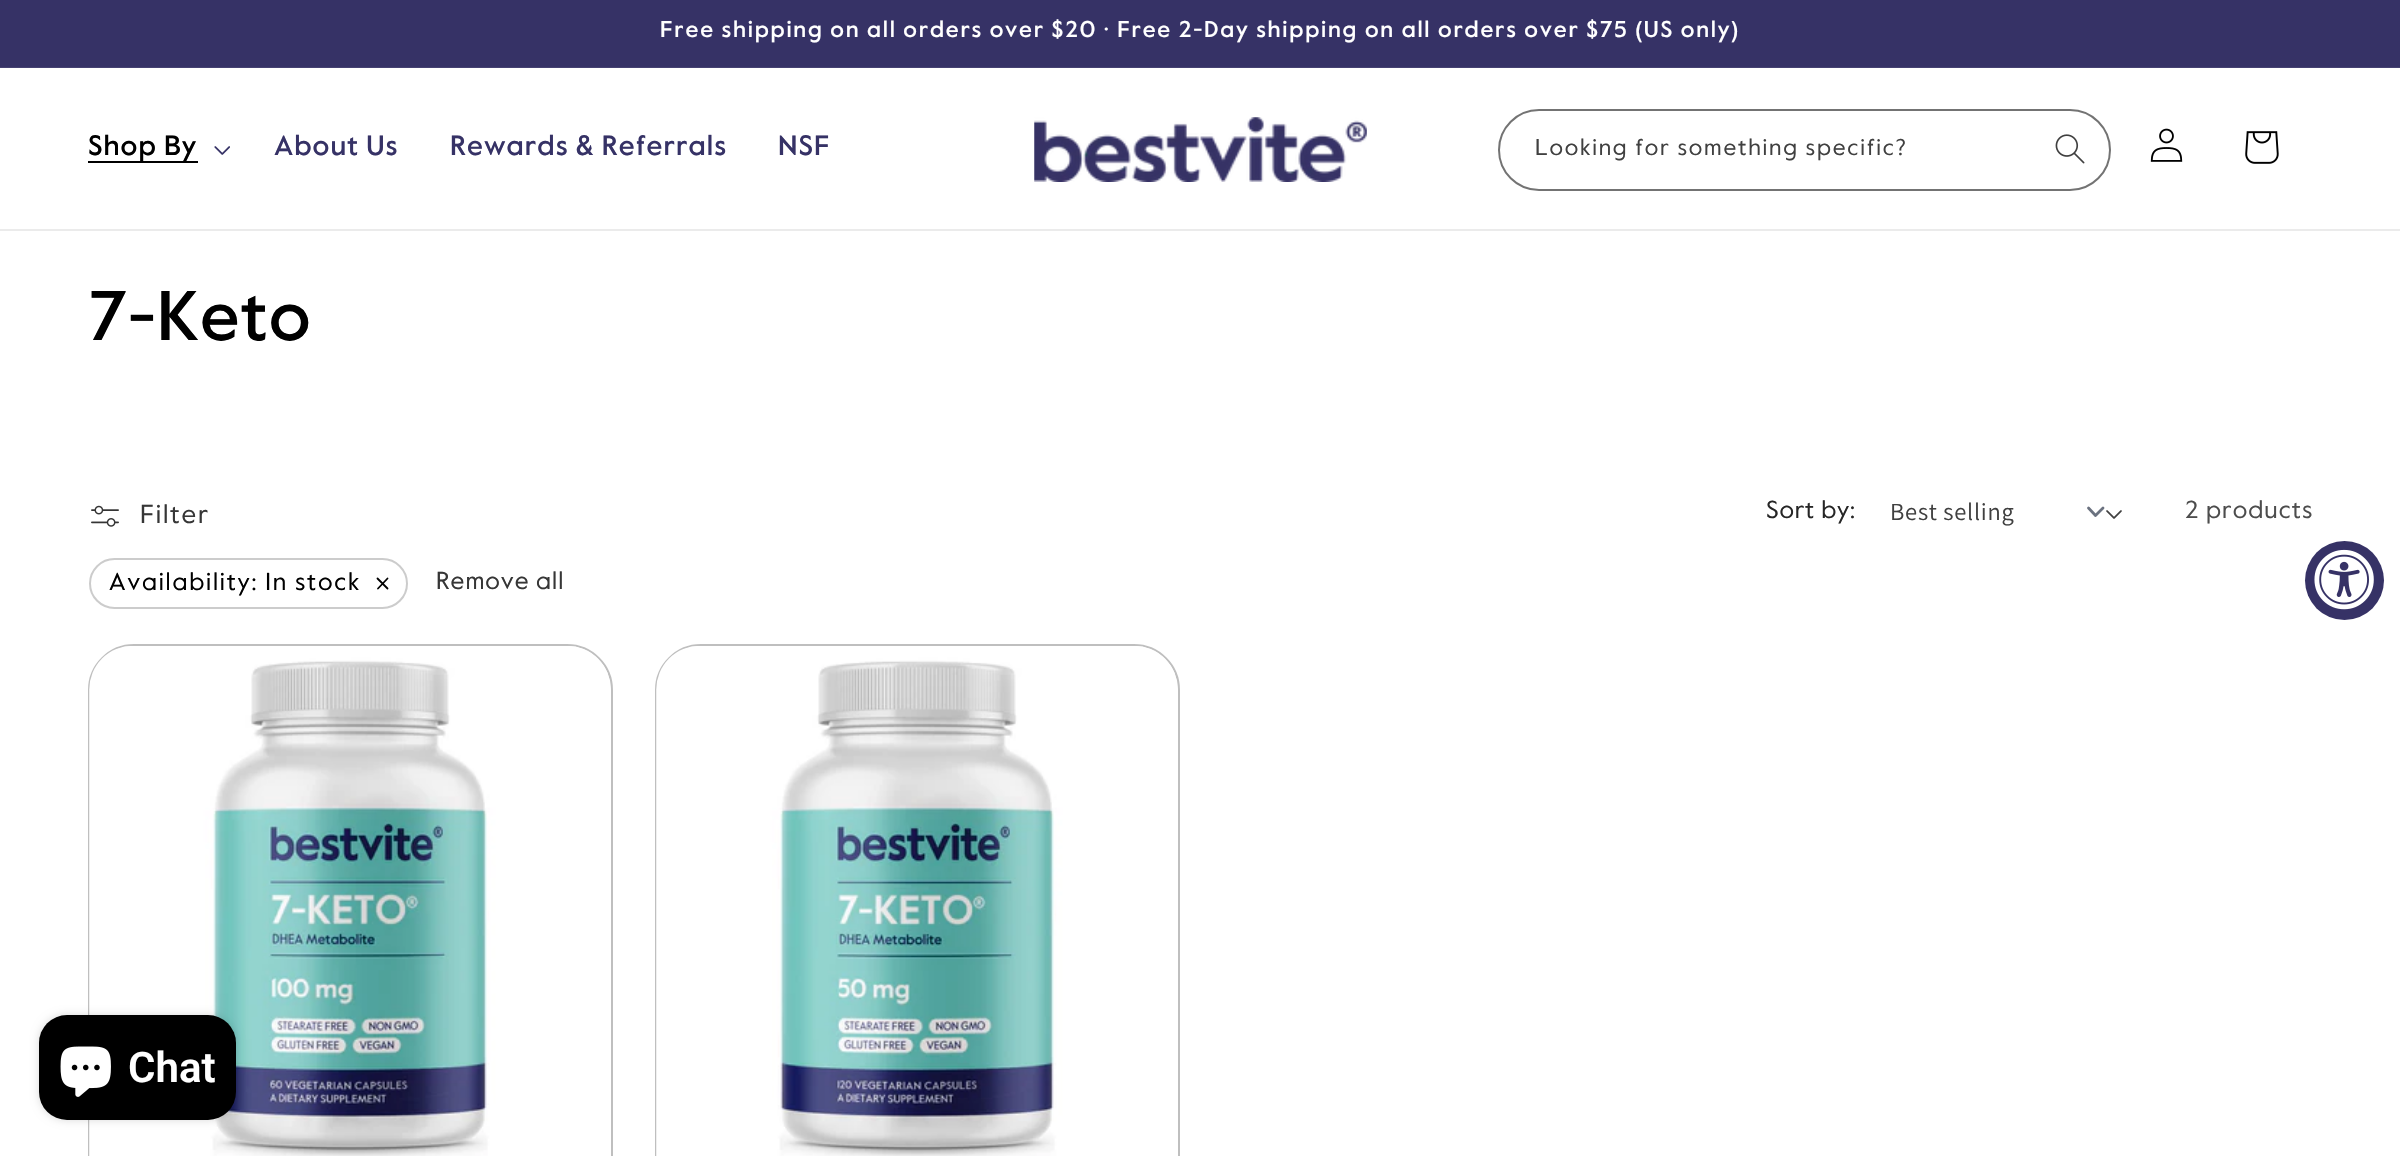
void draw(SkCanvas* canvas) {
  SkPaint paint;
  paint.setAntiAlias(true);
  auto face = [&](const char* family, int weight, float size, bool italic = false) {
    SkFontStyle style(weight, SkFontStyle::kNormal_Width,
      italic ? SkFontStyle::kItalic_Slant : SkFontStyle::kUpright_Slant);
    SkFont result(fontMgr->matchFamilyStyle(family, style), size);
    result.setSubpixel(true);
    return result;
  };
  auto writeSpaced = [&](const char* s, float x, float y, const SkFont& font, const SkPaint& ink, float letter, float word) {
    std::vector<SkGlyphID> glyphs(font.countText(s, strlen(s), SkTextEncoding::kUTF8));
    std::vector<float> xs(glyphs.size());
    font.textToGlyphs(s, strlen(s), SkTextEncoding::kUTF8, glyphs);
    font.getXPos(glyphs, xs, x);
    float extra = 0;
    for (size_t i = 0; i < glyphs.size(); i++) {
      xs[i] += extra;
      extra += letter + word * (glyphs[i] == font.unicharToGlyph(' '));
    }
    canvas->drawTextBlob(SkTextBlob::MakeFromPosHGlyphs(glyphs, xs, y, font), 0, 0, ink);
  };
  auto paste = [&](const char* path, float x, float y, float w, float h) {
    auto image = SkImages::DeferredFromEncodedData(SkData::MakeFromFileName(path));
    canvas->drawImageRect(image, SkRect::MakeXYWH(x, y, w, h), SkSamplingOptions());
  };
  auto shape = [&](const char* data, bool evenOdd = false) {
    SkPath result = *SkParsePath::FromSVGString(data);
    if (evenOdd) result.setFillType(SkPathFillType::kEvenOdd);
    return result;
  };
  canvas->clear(0xffffffff);
  {
    const struct { float x, y, w, h; SkColor color; } items[] = {
      {0, 0, 2400, 67, 0xff363266},
      {0, 67, 2400, 1, 0xff464272},
      {0, 229, 2400, 2, 0xffebebeb},
      {88, 161, 110, 2, 0xff000000},
    };
    for (auto [x, y, w, h, color] : items) {
      paint.setColor(color);
      canvas->drawRect(SkRect::MakeXYWH(x, y, w, h), paint);
    }
  }
  paste("img/1.png", 214, 146, 16, 9);
  paste("img/2.png", 1034, 117, 333, 65);
  paste("img/3.png", 2055, 134, 30, 30);
  paint.setStroke(true);
  paint.setStrokeWidth(2);
  paint.setColor(0xff737373);
  canvas->drawRoundRect(SkRect::MakeXYWH(1499, 110, 611, 80), 40, 40, paint);
  paste("img/4.png", 2150, 128, 33, 34);
  paste("img/5.png", 2245, 131, 34, 33);
  paste("img/6.png", 91, 505, 28, 22);
  paint.setStrokeWidth(2.8f);
  paint.setStrokeCap(SkPaint::kRound_Cap);
  paint.setStrokeJoin(SkPaint::kRound_Join);
  paint.setColor(0xff6b7280);
  canvas->drawPath(shape("M2088.5 508L2095.5 515.5L2103 508"), paint);
  paste("img/7.png", 2106, 510, 16, 9);
  paint.setStrokeWidth(2);
  paint.setStrokeCap(SkPaint::kButt_Cap);
  paint.setStrokeJoin(SkPaint::kMiter_Join);
  paint.setColor(0xffcccccc);
  canvas->drawRoundRect(SkRect::MakeXYWH(90, 559, 317, 49), 24.5f, 24.5f, paint);
  paint.setStrokeWidth(1.8f);
  paint.setStrokeCap(SkPaint::kRound_Cap);
  paint.setStrokeJoin(SkPaint::kRound_Join);
  paint.setColor(0xff000000);
  canvas->drawPath(shape("M387.5 588.5L377.5 578.5M378 588.5L387.5 578.5"), paint);
  paint.setStrokeWidth(2);
  paint.setStrokeCap(SkPaint::kButt_Cap);
  paint.setStrokeJoin(SkPaint::kMiter_Join);
  paint.setColor(0xffbfbfbf);
  canvas->drawRoundRect(SkRect::MakeXYWH(89, 645, 523, 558), 45, 45, paint);
  paste("img/8.png", 89, 646, 522, 510);
  canvas->drawRoundRect(SkRect::MakeXYWH(656, 645, 523, 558), 45, 45, paint);
  paste("img/9.png", 656, 646, 522, 510);
  paint.setStroke(false);
  paint.setColor(0xff363266);
  canvas->drawCircle(2344.5f, 580.5f, 39.5f, paint);
  paste("img/10.png", 2314, 549, 60, 61);
  paint.setColor(0x26000000);
  paint.setMaskFilter(SkMaskFilter::MakeBlur(kNormal_SkBlurStyle, 4.5f));
  canvas->drawRoundRect(SkRect::MakeXYWH(39, 1015, 197, 105), 28, 28, paint);
  paint.setMaskFilter(nullptr);
  paint.setColor(0xff000000);
  canvas->drawRoundRect(SkRect::MakeXYWH(39, 1015, 197, 105), 28, 28, paint);
  paste("img/11.png", 60, 1046, 51, 51);
  auto f0 = face("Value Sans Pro", 500, 22.75f);
  paint.setColor(0xffffffff);
  writeSpaced("Free shipping on all orders over $20 · Free 2-Day shipping on all orders over $75 (US only)", 660, 37, f0, paint, 1.75f, 0);
  auto f1 = face("Value Sans Pro", 500, 28);
  paint.setColor(0xff000000);
  writeSpaced("Shop By", 88, 155, f1, paint, 1, 0);
  paint.setColor(0xff363266);
  {
    const struct { const char* s; float x, y; } items[] = {
      {"About Us", 274, 155},
      {"Rewards & Referrals", 450, 155},
      {"NSF", 778, 155},
    };
    for (auto [s, x, y] : items) {
      writeSpaced(s, x, y, f1, paint, 1, 0);
    }
  }
  auto f2 = face("Value Sans Pro", 400, 22.75f);
  paint.setColor(0xff404040);
  writeSpaced("Looking for something specific?", 1535, 155, f2, paint, 1.75f, 0);
  auto f3 = face("Value Sans Pro", 500, 70);
  paint.setColor(0xff000000);
  writeSpaced("7-Keto", 88, 340, f3, paint, 1, 0);
  auto f4 = face("Value Sans Pro", 400, 26);
  paint.setColor(0xff363636);
  writeSpaced("Filter", 140, 523, f4, paint, 1.75f, 0);
  auto f5 = face("Value Sans Pro", 400, 24.5f);
  paint.setColor(0xff262626);
  writeSpaced("Sort by:", 1766, 518, f5, paint, 0.75f, 0);
  auto f6 = face("Assistant", 400, 24.5f);
  paint.setColor(0xff404040);
  writeSpaced("Best selling", 1890, 520, f6, paint, 0.75f, 0);
  paint.setColor(0xff4d4d4d);
  writeSpaced("2 products", 2185, 518, f5, paint, 1, 0);
  paint.setColor(0xff000000);
  writeSpaced("Availability: In stock", 109, 590, f5, paint, 1.75f, 0);
  paint.setColor(0xff363636);
  writeSpaced("Remove all", 436, 589, f5, paint, 1, 0);
  auto f7 = face("Roboto", 600, 42);
  paint.setColor(0xffffffff);
  canvas->drawString("Chat", 128, 1082, f7, paint);
}
